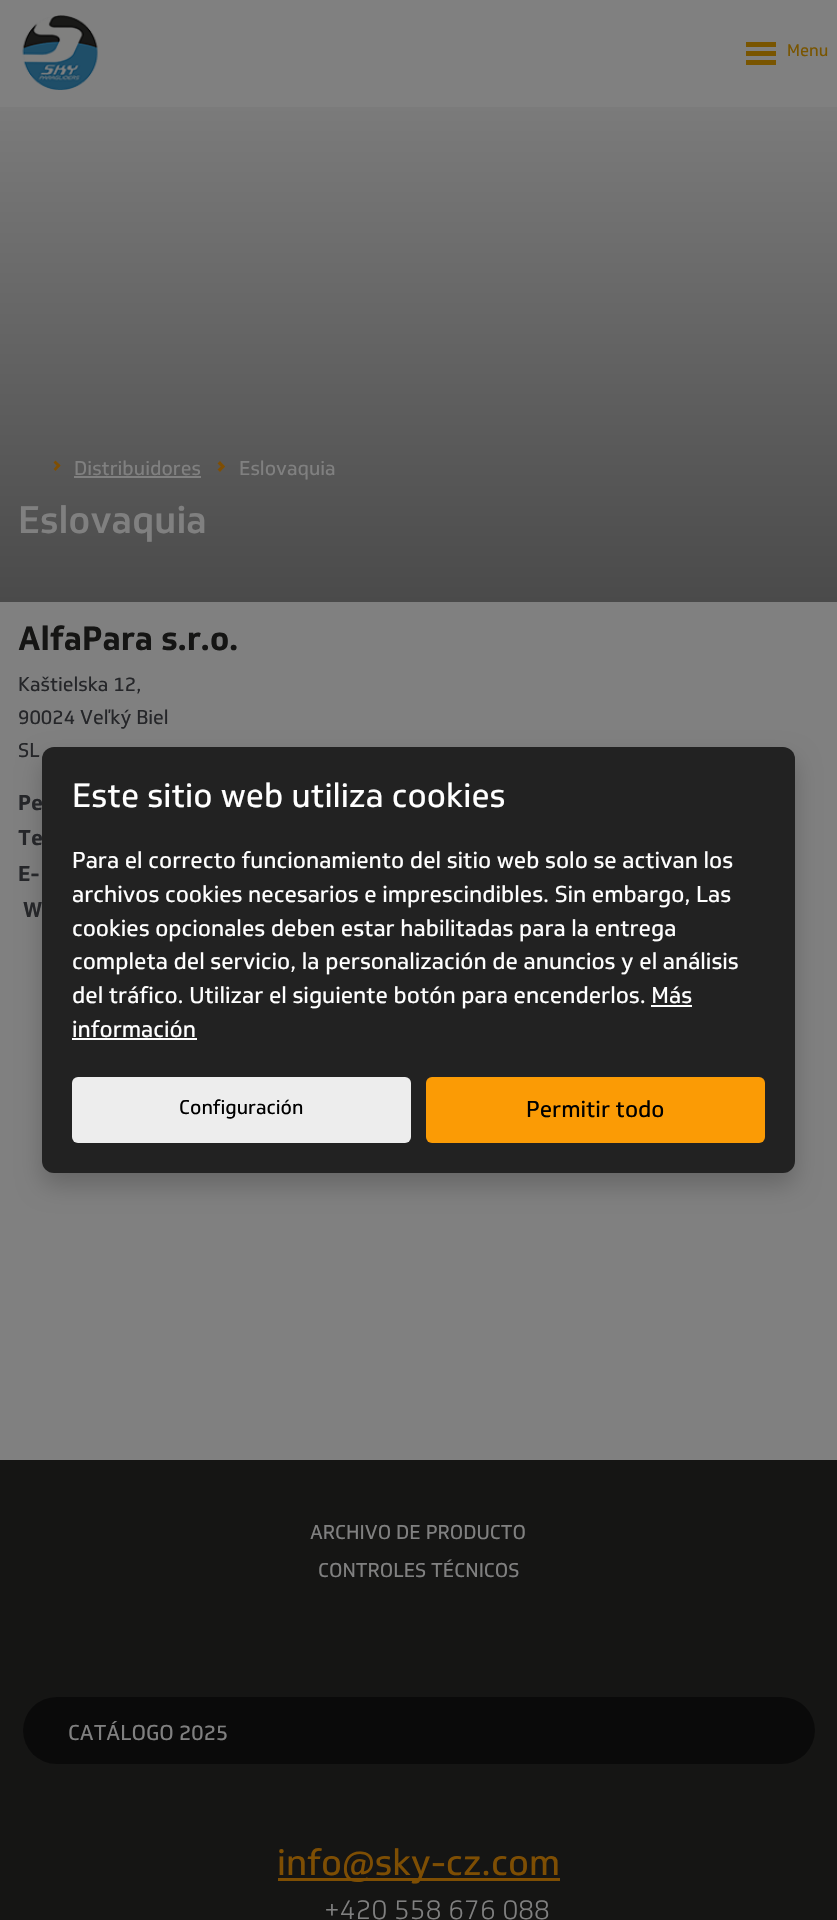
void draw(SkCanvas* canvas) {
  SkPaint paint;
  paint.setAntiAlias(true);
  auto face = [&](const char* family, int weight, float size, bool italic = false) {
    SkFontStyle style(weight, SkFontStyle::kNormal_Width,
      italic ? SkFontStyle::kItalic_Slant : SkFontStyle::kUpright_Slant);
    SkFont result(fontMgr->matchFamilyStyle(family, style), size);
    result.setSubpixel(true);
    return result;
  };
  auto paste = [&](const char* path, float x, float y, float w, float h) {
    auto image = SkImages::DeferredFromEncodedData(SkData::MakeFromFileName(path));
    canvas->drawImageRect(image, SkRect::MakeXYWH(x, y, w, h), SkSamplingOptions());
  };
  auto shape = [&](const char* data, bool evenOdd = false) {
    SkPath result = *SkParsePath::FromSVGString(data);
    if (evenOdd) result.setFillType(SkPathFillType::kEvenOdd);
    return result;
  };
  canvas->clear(0xff808080);
  paste("img/1.png", 22, 15, 76, 75);
  {
    const struct { float x, y, w, h; SkColor color; } items[] = {
      {746, 42, 30, 5, 0xff795501},
      {746, 51, 30, 5, 0xff795501},
      {746, 60, 30, 5, 0xff795501},
    };
    for (auto [x, y, w, h, color] : items) {
      paint.setColor(color);
      canvas->drawRect(SkRect::MakeXYWH(x, y, w, h), paint);
    }
  }
  {
    const SkColor colors[] = {0xff7b7b7b, 0xff4a4a4a};
    const float stops[] = {0, 1};
    const SkPoint ends[] = {{419, 106}, {419, 602}};
    paint.setShader(SkGradientShader::MakeLinear(ends, colors, stops, 2, SkTileMode::kClamp));
    paint.setAlpha(255);
  }
  canvas->drawRect(SkRect::MakeXYWH(0, 107, 837, 495), paint);
  paint.setShader(nullptr);
  paint.setColor(0xff7e4e03);
  canvas->drawPath(shape("M58.5 467.5L53.5 462.5L55.5 460.5L60.5 465.5Z"), paint);
  canvas->drawPath(shape("M55.5 471L53.5 469L58.5 463.5L60.5 465.5Z"), paint);
  paint.setColor(0xff808080);
  canvas->drawRect(SkRect::MakeXYWH(74, 476, 127, 2), paint);
  paint.setColor(0xff7e4e03);
  canvas->drawPath(shape("M223 468.5L217.5 463.5L220 461L225 466.5Z"), paint);
  canvas->drawPath(shape("M220 472L217.5 469.5L223 464.5L225 466.5Z"), paint);
  paint.setColor(0xff151514);
  canvas->drawRect(SkRect::MakeXYWH(0, 1460, 837, 460), paint);
  paint.setColor(0xff0a0a0a);
  canvas->drawRoundRect(SkRect::MakeXYWH(23, 1697, 792, 67), 33.5f, 33.5f, paint);
  paint.setColor(0xff7e4e03);
  canvas->drawRect(SkRect::MakeXYWH(278, 1878, 282, 3), paint);
  paint.setColor(0x33000000);
  paint.setMaskFilter(SkMaskFilter::MakeBlur(kNormal_SkBlurStyle, 12));
  canvas->drawRoundRect(SkRect::MakeXYWH(42, 759, 753, 426), 12, 12, paint);
  paint.setMaskFilter(nullptr);
  paint.setColor(0xff222222);
  canvas->drawRoundRect(SkRect::MakeXYWH(42, 747, 753, 426), 12, 12, paint);
  paint.setColor(0xffffffff);
  canvas->drawRect(SkRect::MakeXYWH(651, 1005, 41, 2), paint);
  canvas->drawRect(SkRect::MakeXYWH(72, 1038, 125, 2), paint);
  paint.setColor(0xffededed);
  canvas->drawRoundRect(SkRect::MakeXYWH(72, 1077, 339, 66), 6, 6, paint);
  paint.setColor(0xfffb9b05);
  canvas->drawRoundRect(SkRect::MakeXYWH(426, 1077, 339, 66), 6, 6, paint);
  auto f0 = face("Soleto", 400, 16.5f);
  paint.setColor(0xff795501);
  canvas->drawString("Menu", 787, 56, f0, paint);
  auto f1 = face("Soleto", 400, 19.5f);
  paint.setColor(0xff808080);
  canvas->drawString("Distribuidores", 74, 475, f1, paint);
  canvas->drawString("Eslovaquia", 239, 475, f1, paint);
  auto f2 = face("Soleto", 500, 37.5f);
  canvas->drawString("Eslovaquia", 18, 533, f2, paint);
  auto f3 = face("Soleto", 700, 33);
  paint.setColor(0xff151514);
  canvas->drawString("AlfaPara s.r.o.", 18, 650, f3, paint);
  paint.setColor(0xff252629);
  {
    const struct { const char* s; float x, y; } items[] = {
      {"Kaštielska 12,", 18, 691},
      {"90024 Veľký Biel", 18, 724},
      {"SL", 18, 757},
    };
    for (auto [s, x, y] : items) {
      canvas->drawString(s, x, y, f1, paint);
    }
  }
  auto f4 = face("Soleto", 700, 21);
  {
    const struct { const char* s; float x, y; } items[] = {
      {"Pe", 18, 810},
      {"Te", 18, 845},
      {"E-", 18, 881},
      {"W", 23, 917},
    };
    for (auto [s, x, y] : items) {
      canvas->drawString(s, x, y, f4, paint);
    }
  }
  paint.setColor(0xff808080);
  canvas->drawString("ARCHIVO DE PRODUCTO", 310, 1539, f1, paint);
  canvas->drawString("CONTROLES TÉCNICOS", 318, 1577, f1, paint);
  auto f5 = face("Soleto", 400, 21);
  canvas->drawString("CATÁLOGO 2025", 68, 1740, f5, paint);
  auto f6 = face("Soleto", 400, 36);
  paint.setColor(0xff7e4e03);
  canvas->drawString("info@sky-cz.com", 277, 1875, f6, paint);
  auto f7 = face("Soleto", 300, 27);
  paint.setColor(0xff808080);
  canvas->drawString("+420 558 676 088", 324, 1919, f7, paint);
  auto f8 = face("Soleto", 400, 33);
  paint.setColor(0xffffffff);
  canvas->drawString("Este sitio web utiliza cookies", 72, 807, f8, paint);
  auto f9 = face("Soleto", 400, 22.5f);
  {
    const struct { const char* s; float x, y; } items[] = {
      {"Para el correcto funcionamiento del sitio web solo se activan los", 72, 868},
      {"archivos cookies necesarios e imprescindibles. Sin embargo, Las", 72, 902},
      {"cookies opcionales deben estar habilitadas para la entrega", 72, 936},
      {"completa del servicio, la personalización de anuncios y el análisis", 72, 969},
      {"del tráfico. Utilizar el siguiente botón para encenderlos. Más", 72, 1003},
      {"información", 72, 1037},
    };
    for (auto [s, x, y] : items) {
      canvas->drawString(s, x, y, f9, paint);
    }
  }
  paint.setColor(0xff000000);
  canvas->drawString("Configuración", 179, 1114, f1, paint);
  canvas->drawString("Permitir todo", 526, 1117, f9, paint);
}
